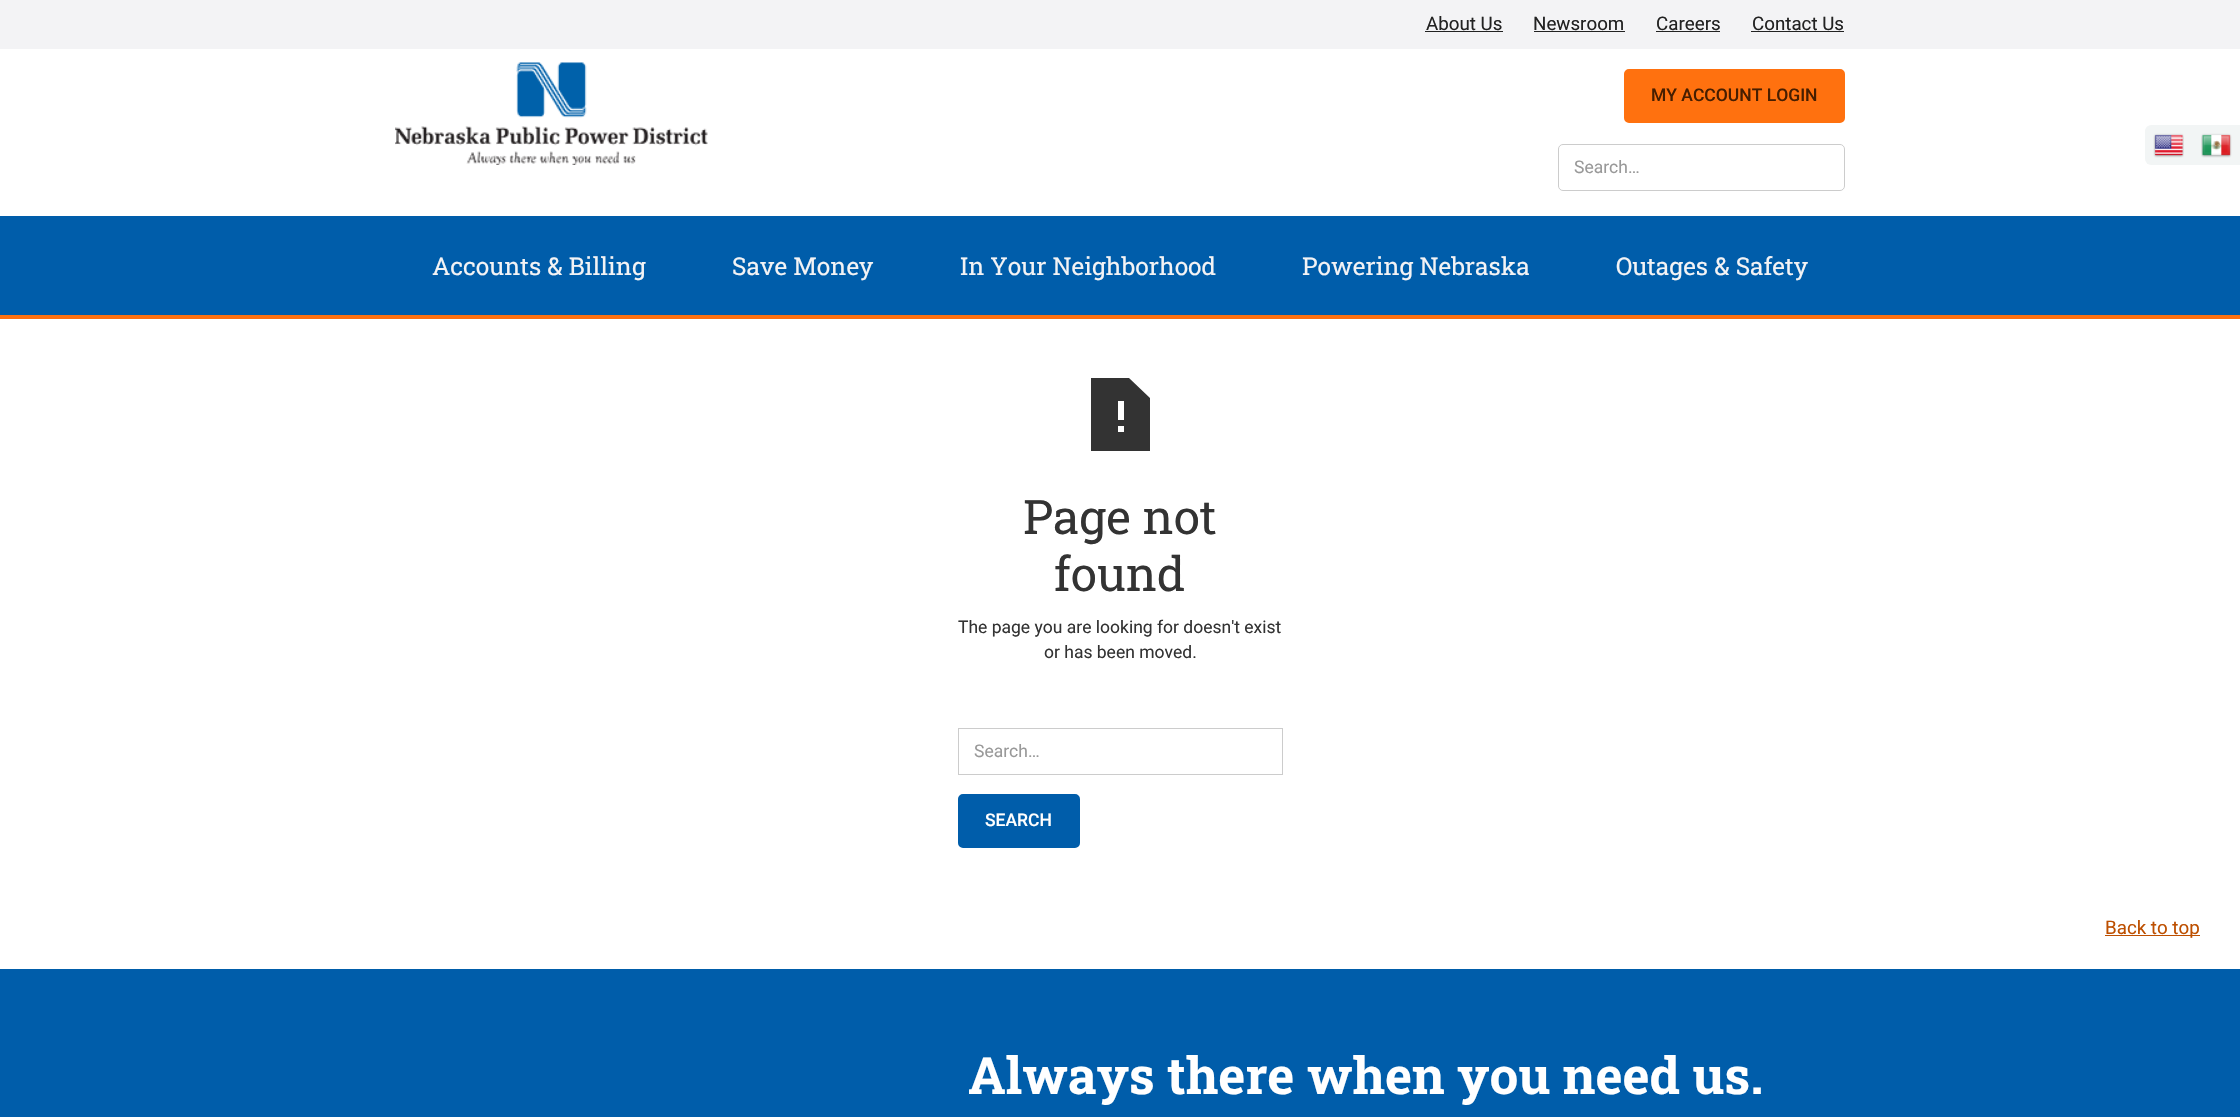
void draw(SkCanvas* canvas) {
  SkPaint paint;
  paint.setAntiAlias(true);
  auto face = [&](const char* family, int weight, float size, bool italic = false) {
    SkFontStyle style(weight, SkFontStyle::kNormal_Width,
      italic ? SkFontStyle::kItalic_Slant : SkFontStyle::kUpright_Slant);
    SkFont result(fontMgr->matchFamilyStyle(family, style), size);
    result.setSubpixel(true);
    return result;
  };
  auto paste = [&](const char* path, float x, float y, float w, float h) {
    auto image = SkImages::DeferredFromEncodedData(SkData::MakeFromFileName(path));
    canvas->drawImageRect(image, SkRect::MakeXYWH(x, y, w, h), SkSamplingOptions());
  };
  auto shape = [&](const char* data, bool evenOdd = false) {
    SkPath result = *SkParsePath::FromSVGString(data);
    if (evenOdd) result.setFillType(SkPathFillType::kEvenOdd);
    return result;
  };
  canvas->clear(0xffffffff);
  {
    const struct { float x, y, w, h; SkColor color; } items[] = {
      {0, 0, 2240, 49, 0xfff3f3f5},
      {1425, 31, 78, 1, 0xff222222},
      {1534, 31, 91, 1, 0xff222222},
      {1656, 31, 64, 1, 0xff222222},
      {1751, 31, 93, 1, 0xff222222},
    };
    for (auto [x, y, w, h, color] : items) {
      paint.setColor(color);
      canvas->drawRect(SkRect::MakeXYWH(x, y, w, h), paint);
    }
  }
  paste("img/1.png", 395, 62, 313, 103);
  paint.setColor(0xffff710f);
  canvas->drawRoundRect(SkRect::MakeXYWH(1625.5f, 70.5f, 218, 51), 3.5f, 3.5f, paint);
  paint.setStroke(true);
  paint.setStrokeWidth(3);
  canvas->drawRoundRect(SkRect::MakeXYWH(1625.5f, 70.5f, 218, 51), 3.5f, 3.5f, paint);
  paint.setStrokeWidth(1);
  paint.setColor(0xffcccccc);
  canvas->drawRoundRect(SkRect::MakeXYWH(1558.5f, 144.5f, 286, 46), 4.5f, 4.5f, paint);
  paint.setStroke(false);
  paint.setColor(0xff005daa);
  canvas->drawRect(SkRect::MakeXYWH(0, 216, 2240, 99), paint);
  paint.setColor(0xffff710f);
  canvas->drawRect(SkRect::MakeXYWH(0, 315, 2240, 4), paint);
  paste("img/2.png", 2145, 125, 95, 40);
  paint.setColor(0xff333333);
  canvas->drawPath(shape("M1091 378H1129L1150 398V451H1091ZM1118 401H1124V420H1118ZM1118 426H1124V432H1118Z", true), paint);
  paint.setStroke(true);
  paint.setColor(0xffcccccc);
  canvas->drawRect(SkRect::MakeXYWH(958.5f, 728.5f, 324, 46), paint);
  paint.setStroke(false);
  paint.setColor(0xff005daa);
  canvas->drawRoundRect(SkRect::MakeXYWH(959.5f, 795.5f, 119, 51), 3.5f, 3.5f, paint);
  paint.setStroke(true);
  paint.setStrokeWidth(3);
  canvas->drawRoundRect(SkRect::MakeXYWH(959.5f, 795.5f, 119, 51), 3.5f, 3.5f, paint);
  paint.setStroke(false);
  paint.setColor(0xffbd4f00);
  canvas->drawRect(SkRect::MakeXYWH(2105, 935, 95, 1), paint);
  paint.setColor(0xff005daa);
  canvas->drawRect(SkRect::MakeXYWH(0, 969, 2240, 148), paint);
  auto f0 = face("Roboto", 400, 18.75f);
  paint.setColor(0xff222222);
  {
    const struct { const char* s; float x, y; } items[] = {
      {"About Us", 1426, 30},
      {"Newsroom", 1533, 30},
      {"Careers", 1656, 30},
      {"Contact Us", 1752, 30},
    };
    for (auto [s, x, y] : items) {
      canvas->drawString(s, x, y, f0, paint);
    }
  }
  auto f1 = face("Roboto", 500, 17.5f);
  paint.setColor(0xff471e00);
  canvas->drawString("MY ACCOUNT LOGIN", 1651, 101, f1, paint);
  auto f2 = face("Roboto", 400, 17.5f);
  paint.setColor(0xff999999);
  canvas->drawString("Search…", 1574, 173, f2, paint);
  auto f3 = face("Roboto Slab", 400, 24.5f);
  paint.setColor(0xfff3f3f5);
  {
    const struct { const char* s; float x, y; } items[] = {
      {"Accounts & Billing", 432, 275},
      {"Save Money", 732, 275},
      {"In Your Neighborhood", 960, 275},
      {"Powering Nebraska", 1302, 275},
      {"Outages & Safety", 1616, 275},
    };
    for (auto [s, x, y] : items) {
      canvas->drawString(s, x, y, f3, paint);
    }
  }
  auto f4 = face("Roboto Slab", 400, 47.5f);
  paint.setColor(0xff333333);
  canvas->drawString("Page not", 1023, 534, f4, paint);
  canvas->drawString("found", 1054, 591, f4, paint);
  canvas->drawString("The page you are looking for doesn't exist", 958, 633, f2, paint);
  canvas->drawString("or has been moved.", 1044, 658, f2, paint);
  paint.setColor(0xff999999);
  canvas->drawString("Search…", 974, 757, f2, paint);
  paint.setColor(0xffffffff);
  canvas->drawString("SEARCH", 985, 826, f1, paint);
  paint.setColor(0xffbd4f00);
  canvas->drawString("Back to top", 2105, 934, f0, paint);
  auto f5 = face("Roboto Slab", 700, 51.25f);
  paint.setColor(0xffffffff);
  canvas->drawString("Always there when you need us.", 968, 1094, f5, paint);
}
